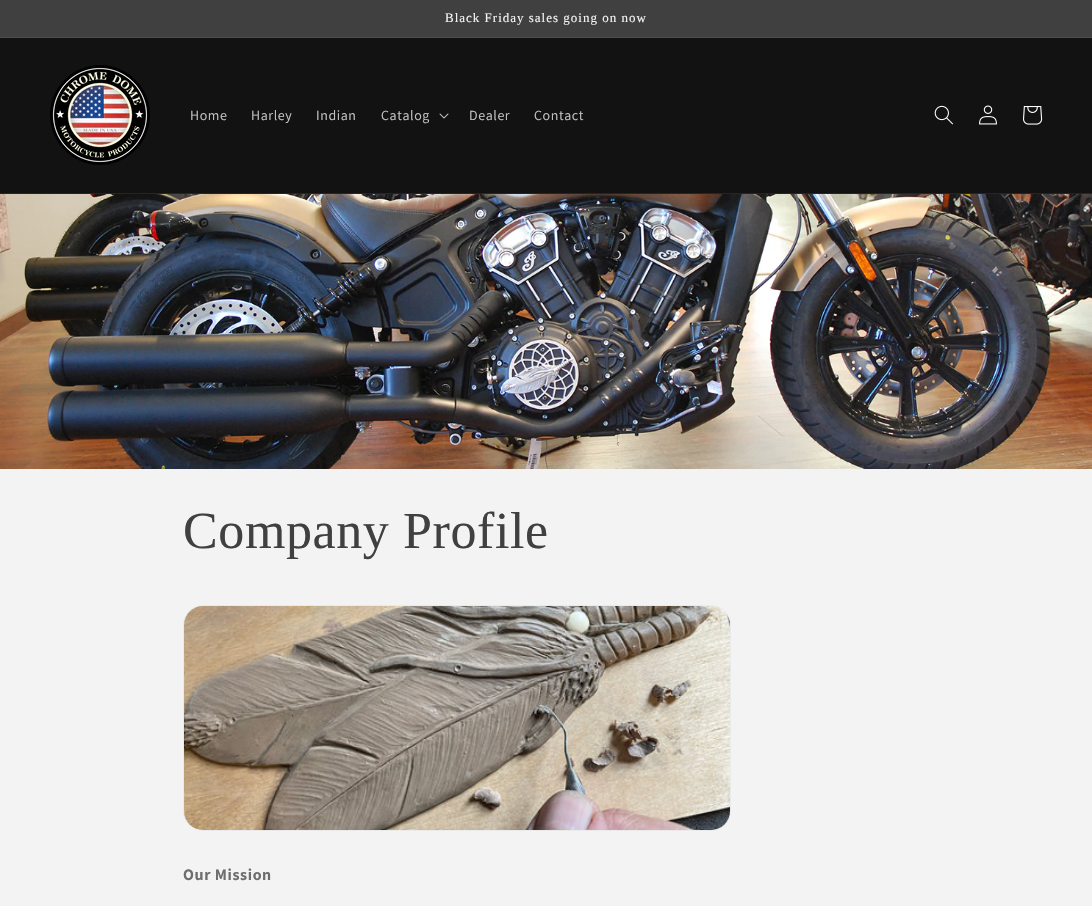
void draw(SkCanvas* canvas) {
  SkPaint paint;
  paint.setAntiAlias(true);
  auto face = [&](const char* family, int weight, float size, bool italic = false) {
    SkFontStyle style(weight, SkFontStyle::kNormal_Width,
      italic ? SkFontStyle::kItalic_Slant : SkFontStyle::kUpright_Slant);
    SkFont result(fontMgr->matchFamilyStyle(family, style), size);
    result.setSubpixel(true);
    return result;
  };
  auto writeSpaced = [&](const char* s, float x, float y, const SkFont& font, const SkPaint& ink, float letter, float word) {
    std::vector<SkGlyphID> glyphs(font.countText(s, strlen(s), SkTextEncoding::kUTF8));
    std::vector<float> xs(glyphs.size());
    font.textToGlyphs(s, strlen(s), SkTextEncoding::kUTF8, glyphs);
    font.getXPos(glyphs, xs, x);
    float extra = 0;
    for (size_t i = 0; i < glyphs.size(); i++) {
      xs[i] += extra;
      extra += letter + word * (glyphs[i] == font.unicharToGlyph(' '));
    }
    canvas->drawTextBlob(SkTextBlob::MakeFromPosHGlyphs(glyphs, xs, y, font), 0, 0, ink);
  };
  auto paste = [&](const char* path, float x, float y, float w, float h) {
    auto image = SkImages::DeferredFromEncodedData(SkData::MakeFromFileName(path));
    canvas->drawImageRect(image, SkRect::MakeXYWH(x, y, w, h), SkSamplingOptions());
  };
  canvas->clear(0xfff3f3f3);
  {
    const struct { float x, y, w, h; SkColor color; } items[] = {
      {0, 0, 1092, 37, 0xff404040},
      {0, 37, 1092, 1, 0xff4e4e4e},
      {0, 38, 1092, 155, 0xff121212},
      {0, 193, 1092, 1, 0xff252525},
    };
    for (auto [x, y, w, h, color] : items) {
      paint.setColor(color);
      canvas->drawRect(SkRect::MakeXYWH(x, y, w, h), paint);
    }
  }
  paste("img/1.png", 50, 65, 100, 100);
  paste("img/2.png", 439, 113, 10, 6);
  paste("img/3.png", 934, 105, 19, 20);
  paste("img/4.png", 979, 105, 18, 20);
  paste("img/5.png", 1023, 106, 20, 19);
  paste("img/6.png", 0, 194, 1092, 275);
  paint.setStroke(true);
  paint.setStrokeWidth(1);
  paint.setColor(0xffeaeaea);
  canvas->drawRoundRect(SkRect::MakeXYWH(183.5f, 605.5f, 547, 225), 19.5f, 19.5f, paint);
  paste("img/7.png", 184, 606, 546, 224);
  auto f0 = face("Liberation Serif", 400, 13);
  paint.setStroke(false);
  paint.setColor(0xfff3f3f3);
  writeSpaced("Black Friday sales going on now", 445, 22, f0, paint, 1, 0);
  auto f1 = face("Assistant", 400, 14);
  paint.setColor(0xffc4c4c4);
  {
    const struct { const char* s; float x, y; } items[] = {
      {"Home", 190, 120},
      {"Harley", 251, 120},
      {"Indian", 316, 120},
      {"Catalog", 381, 120},
      {"Dealer", 469, 120},
      {"Contact", 534, 120},
    };
    for (auto [s, x, y] : items) {
      writeSpaced(s, x, y, f1, paint, 0.6f, 0);
    }
  }
  auto f2 = face("Liberation Serif", 400, 52);
  paint.setColor(0xff404040);
  writeSpaced("Company Profile", 183, 548, f2, paint, 0.6f, 0);
  auto f3 = face("Assistant", 700, 16);
  paint.setColor(0xff6d6d6d);
  writeSpaced("Our Mission", 183, 880, f3, paint, 0.6f, 0);
}
